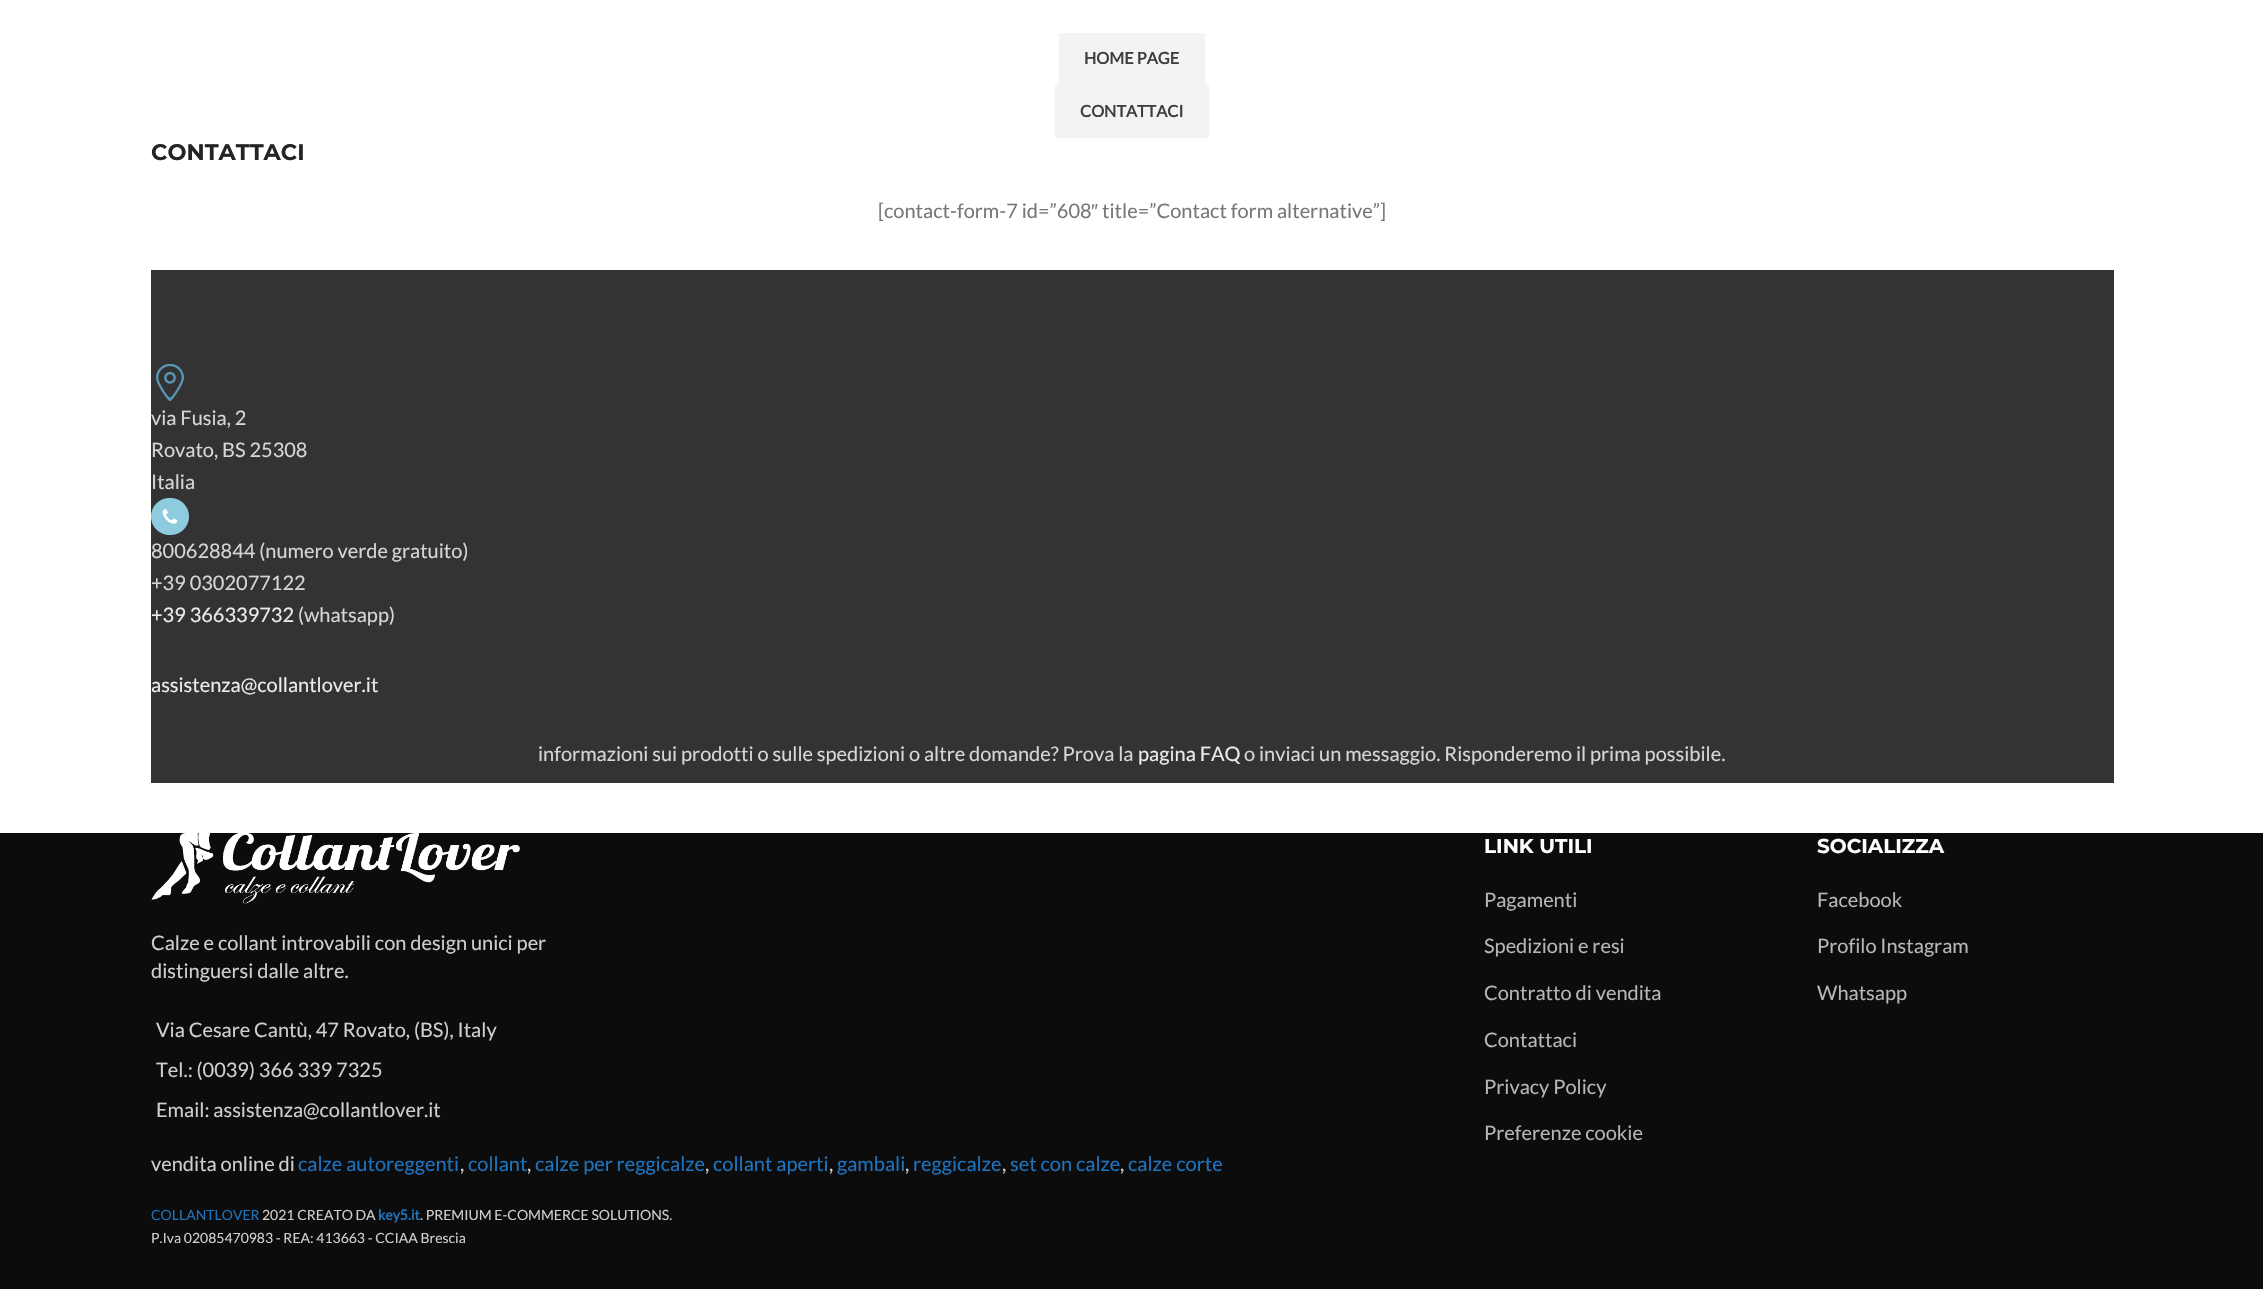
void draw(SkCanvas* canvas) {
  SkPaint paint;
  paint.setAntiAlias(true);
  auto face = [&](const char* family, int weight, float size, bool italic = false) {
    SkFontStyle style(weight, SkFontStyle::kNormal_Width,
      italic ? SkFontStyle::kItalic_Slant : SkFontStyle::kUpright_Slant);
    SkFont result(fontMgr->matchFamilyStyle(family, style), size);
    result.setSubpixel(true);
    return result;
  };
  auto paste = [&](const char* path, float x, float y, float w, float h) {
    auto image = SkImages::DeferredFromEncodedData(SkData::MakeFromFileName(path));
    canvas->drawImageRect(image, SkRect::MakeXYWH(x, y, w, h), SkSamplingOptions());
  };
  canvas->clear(0xffffffff);
  {
    const struct { float x, y, w, h; SkColor color; } items[] = {
      {1059, 33, 146, 52, 0xfff3f3f3},
      {1055, 85, 154, 53, 0xfff3f3f3},
      {151, 270, 1963, 513, 0xff333333},
    };
    for (auto [x, y, w, h, color] : items) {
      paint.setColor(color);
      canvas->drawRect(SkRect::MakeXYWH(x, y, w, h), paint);
    }
  }
  paste("img/1.png", 156, 364, 28, 37);
  paste("img/2.png", 151, 498, 38, 37);
  paint.setColor(0xff0c0c0c);
  canvas->drawRect(SkRect::MakeXYWH(0, 833, 2263, 456), paint);
  paste("img/3.png", 151, 833, 369, 71);
  auto f0 = face("Lato", 700, 16.25f);
  paint.setColor(0xff3e3e3e);
  canvas->drawString("HOME PAGE", 1084, 64, f0, paint);
  canvas->drawString("CONTATTACI", 1080, 117, f0, paint);
  auto f1 = face("Montserrat", 700, 22.5f);
  paint.setColor(0xff242424);
  canvas->drawString("CONTATTACI", 151, 160, f1, paint);
  auto f2 = face("Lato", 400, 20);
  paint.setColor(0xff777777);
  canvas->drawString("[contact-form-7 id=”608", 878, 218, f2, paint);
  auto f3 = face("Liberation Sans", 400, 20);
  canvas->drawString("″", 1091, 218, f3, paint);
  canvas->drawString("title=”Contact form alternative”]", 1102, 218, f2, paint);
  paint.setColor(0xffd6d6d6);
  {
    const struct { const char* s; float x, y; } items[] = {
      {"via Fusia, 2", 151, 425},
      {"Rovato, BS 25308", 151, 457},
      {"Italia", 151, 489},
      {"800628844 (numero verde gratuito)", 151, 558},
      {"+39 0302077122", 151, 590},
    };
    for (auto [s, x, y] : items) {
      canvas->drawString(s, x, y, f2, paint);
    }
  }
  paint.setColor(0xffebebeb);
  canvas->drawString("+39 366339732", 151, 622, f2, paint);
  paint.setColor(0xffd6d6d6);
  canvas->drawString("(whatsapp)", 298, 622, f2, paint);
  paint.setColor(0xffebebeb);
  canvas->drawString("assistenza@collantlover.it", 151, 692, f2, paint);
  paint.setColor(0xffd6d6d6);
  canvas->drawString("informazioni sui prodotti o sulle spedizioni o altre domande? Prova la", 538, 761, f2, paint);
  paint.setColor(0xffebebeb);
  canvas->drawString("pagina FAQ", 1138, 761, f2, paint);
  paint.setColor(0xffd6d6d6);
  canvas->drawString("o inviaci un messaggio. Risponderemo il prima possibile.", 1244, 761, f2, paint);
  paint.setColor(0xffcecece);
  {
    const struct { const char* s; float x, y; } items[] = {
      {"Calze e collant introvabili con design unici per", 151, 950},
      {"distinguersi dalle altre.", 151, 978},
      {"Via Cesare Cantù, 47 Rovato, (BS), Italy", 156, 1037},
      {"Tel.: (0039) 366 339 7325", 156, 1077},
      {"Email: assistenza@collantlover.it", 156, 1117},
    };
    for (auto [s, x, y] : items) {
      canvas->drawString(s, x, y, f2, paint);
    }
  }
  auto f4 = face("Montserrat", 700, 20);
  paint.setColor(0xffffffff);
  canvas->drawString("LINK UTILI", 1484, 853, f4, paint);
  paint.setColor(0xffb6b6b6);
  {
    const struct { const char* s; float x, y; } items[] = {
      {"Pagamenti", 1484, 907},
      {"Spedizioni e resi", 1484, 953},
      {"Contratto di vendita", 1484, 1000},
      {"Contattaci", 1484, 1047},
      {"Privacy Policy", 1484, 1094},
      {"Preferenze cookie", 1484, 1140},
    };
    for (auto [s, x, y] : items) {
      canvas->drawString(s, x, y, f2, paint);
    }
  }
  paint.setColor(0xffffffff);
  canvas->drawString("SOCIALIZZA", 1817, 853, f4, paint);
  paint.setColor(0xffb6b6b6);
  {
    const struct { const char* s; float x, y; } items[] = {
      {"Facebook", 1817, 907},
      {"Profilo Instagram", 1817, 953},
      {"Whatsapp", 1817, 1000},
    };
    for (auto [s, x, y] : items) {
      canvas->drawString(s, x, y, f2, paint);
    }
  }
  paint.setColor(0xffcecece);
  canvas->drawString("vendita online di", 151, 1171, f2, paint);
  paint.setColor(0xff1e73be);
  canvas->drawString("calze autoreggenti", 298, 1171, f2, paint);
  paint.setColor(0xffcecece);
  canvas->drawString(",", 460, 1171, f2, paint);
  paint.setColor(0xff1e73be);
  canvas->drawString("collant", 468, 1171, f2, paint);
  paint.setColor(0xffcecece);
  canvas->drawString(",", 527, 1171, f2, paint);
  paint.setColor(0xff1e73be);
  canvas->drawString("calze per reggicalze", 535, 1171, f2, paint);
  paint.setColor(0xffcecece);
  canvas->drawString(",", 705, 1171, f2, paint);
  paint.setColor(0xff1e73be);
  canvas->drawString("collant aperti", 713, 1171, f2, paint);
  paint.setColor(0xffcecece);
  canvas->drawString(",", 829, 1171, f2, paint);
  paint.setColor(0xff1e73be);
  canvas->drawString("gambali", 837, 1171, f2, paint);
  paint.setColor(0xffcecece);
  canvas->drawString(",", 905, 1171, f2, paint);
  paint.setColor(0xff1e73be);
  canvas->drawString("reggicalze", 913, 1171, f2, paint);
  paint.setColor(0xffcecece);
  canvas->drawString(",", 1002, 1171, f2, paint);
  paint.setColor(0xff1e73be);
  canvas->drawString("set con calze", 1010, 1171, f2, paint);
  paint.setColor(0xffcecece);
  canvas->drawString(",", 1120, 1171, f2, paint);
  paint.setColor(0xff1e73be);
  canvas->drawString("calze corte", 1128, 1171, f2, paint);
  auto f5 = face("Lato", 400, 14);
  canvas->drawString("COLLANTLOVER", 151, 1220, f5, paint);
  paint.setColor(0xffcecece);
  canvas->drawString("2021 CREATO DA", 262, 1220, f5, paint);
  auto f6 = face("Lato", 700, 14);
  paint.setColor(0xff1e73be);
  canvas->drawString("key5.it", 378, 1220, f6, paint);
  paint.setColor(0xffcecece);
  canvas->drawString(". PREMIUM E-COMMERCE SOLUTIONS.", 420, 1220, f5, paint);
  canvas->drawString("P.Iva 02085470983 - REA: 413663 - CCIAA Brescia", 151, 1243, f5, paint);
}
